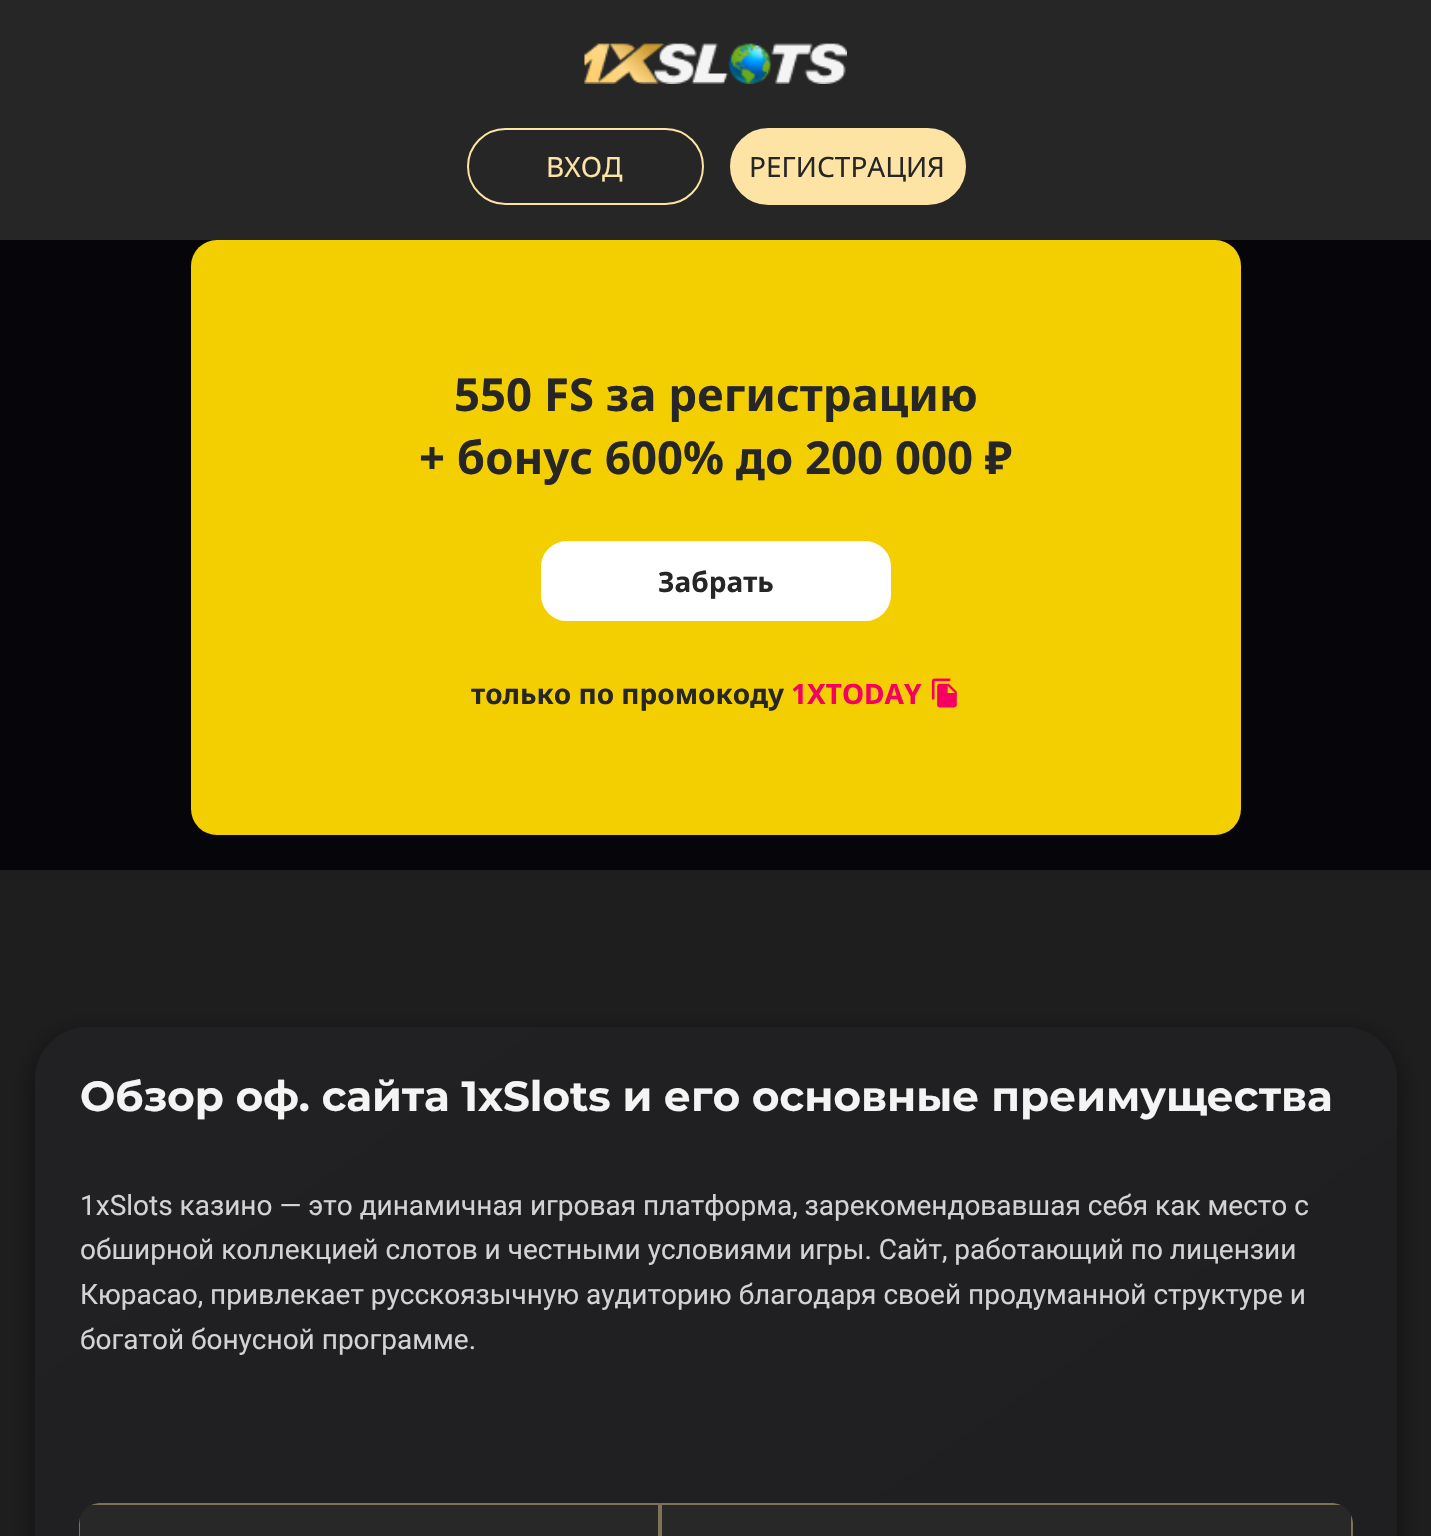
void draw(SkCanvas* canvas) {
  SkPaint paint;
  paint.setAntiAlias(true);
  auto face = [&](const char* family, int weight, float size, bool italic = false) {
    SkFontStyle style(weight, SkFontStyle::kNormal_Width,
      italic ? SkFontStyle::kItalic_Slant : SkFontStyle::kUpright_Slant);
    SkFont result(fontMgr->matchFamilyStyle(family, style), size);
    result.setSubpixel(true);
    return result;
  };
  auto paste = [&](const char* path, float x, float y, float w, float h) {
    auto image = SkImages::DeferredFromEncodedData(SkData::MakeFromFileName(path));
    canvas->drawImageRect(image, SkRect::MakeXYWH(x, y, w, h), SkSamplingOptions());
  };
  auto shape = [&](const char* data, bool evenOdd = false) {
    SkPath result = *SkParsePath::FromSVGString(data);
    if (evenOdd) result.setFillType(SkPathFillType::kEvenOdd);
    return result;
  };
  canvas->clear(0xff06050a);
  paint.setColor(0xff262627);
  canvas->drawRect(SkRect::MakeXYWH(0, 0, 1431, 240), paint);
  paste("img/1.png", 584, 43, 263, 41);
  paint.setStroke(true);
  paint.setStrokeWidth(2);
  paint.setColor(0xfffde4a5);
  canvas->drawRoundRect(SkRect::MakeXYWH(468, 129, 235, 75), 37.5f, 37.5f, paint);
  paint.setStroke(false);
  canvas->drawRoundRect(SkRect::MakeXYWH(731, 129, 234, 75), 37.5f, 37.5f, paint);
  paint.setStroke(true);
  canvas->drawRoundRect(SkRect::MakeXYWH(731, 129, 234, 75), 37.5f, 37.5f, paint);
  paint.setStroke(false);
  paint.setColor(0xfff3ce00);
  canvas->drawRoundRect(SkRect::MakeXYWH(191, 240, 1050, 595), 26, 26, paint);
  paint.setColor(0xffffffff);
  canvas->drawRoundRect(SkRect::MakeXYWH(543, 543, 346, 76), 24, 24, paint);
  paint.setStroke(true);
  paint.setStrokeWidth(4);
  canvas->drawRoundRect(SkRect::MakeXYWH(543, 543, 346, 76), 24, 24, paint);
  paste("img/2.png", 931, 678, 26, 30);
  paint.setStroke(false);
  paint.setColor(0xff1e1e1f);
  canvas->drawRect(SkRect::MakeXYWH(0, 870, 1431, 666), paint);
  paint.setColor(0x80000000);
  paint.setMaskFilter(SkMaskFilter::MakeBlur(kNormal_SkBlurStyle, 13));
  canvas->drawRoundRect(SkRect::MakeXYWH(35, 1034, 1362, 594), 53, 53, paint);
  paint.setMaskFilter(nullptr);
  {
    const SkColor colors[] = {0xff212022, 0xff19181b};
    const float stops[] = {0, 1};
    const SkPoint ends[] = {{-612, 1480}, {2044, 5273}};
    paint.setShader(SkGradientShader::MakeLinear(ends, colors, stops, 2, SkTileMode::kClamp));
    paint.setAlpha(255);
  }
  canvas->drawRoundRect(SkRect::MakeXYWH(35, 1027, 1362, 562), 53, 53, paint);
  paint.setShader(nullptr);
  paint.setColor(0xff282828);
  canvas->drawPath(shape("M100 1503H660V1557H79V1524C79 1512.5 88.5 1503 100 1503Z"), paint);
  paint.setColor(0x66ffe599);
  canvas->drawPath(shape("M100 1503C97 1503 94 1504 91 1505H658L660 1503Z"), paint);
  canvas->drawPath(shape("M660 1503V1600L658 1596V1505Z"), paint);
  paint.setColor(0xff7e7355);
  canvas->drawPath(shape("M79 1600L80 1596V1518L79 1524Z"), paint);
  paint.setColor(0xff282828);
  canvas->drawPath(shape("M660 1503H1332C1343.5 1503 1353 1512.5 1353 1524V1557H660Z"), paint);
  paint.setColor(0x66ffe599);
  canvas->drawPath(shape("M660 1503L662 1505H1341C1338 1504 1335 1503 1332 1503Z"), paint);
  canvas->drawPath(shape("M1353 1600V1524C1353 1521 1352 1518 1351 1515V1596Z"), paint);
  canvas->drawPath(shape("M660 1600V1503L662 1505V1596Z"), paint);
  auto f0 = face("Noto Sans", 400, 28);
  paint.setColor(0xfffde4a5);
  canvas->drawString("ВХОД", 546, 177, f0, paint);
  paint.setColor(0xff262626);
  canvas->drawString("РЕГИСТРАЦИЯ", 749, 177, f0, paint);
  auto f1 = face("Noto Sans", 700, 45.5f);
  canvas->drawString("550 FS за регистрацию", 454, 411, f1, paint);
  canvas->drawString("+ бонус 600% до 200 000 ₽", 419, 474, f1, paint);
  auto f2 = face("Noto Sans", 700, 28);
  canvas->drawString("Забрать", 658, 592, f2, paint);
  canvas->drawString("только по промокоду", 471, 704, f2, paint);
  paint.setColor(0xfff50062);
  canvas->drawString("1XTODAY", 791, 704, f2, paint);
  auto f3 = face("Montserrat", 700, 42);
  paint.setColor(0xfff4f4f5);
  canvas->drawString("Обзор оф. сайта 1xSlots и его основные преимущества", 80, 1111, f3, paint);
  auto f4 = face("Roboto", 400, 28);
  paint.setColor(0xffd3d3d4);
  {
    const struct { const char* s; float x, y; } items[] = {
      {"1xSlots казино — это динамичная игровая платформа, зарекомендовавшая себя как место с", 80, 1215},
      {"обширной коллекцией слотов и честными условиями игры. Сайт, работающий по лицензии", 80, 1259},
      {"Кюрасао, привлекает русскоязычную аудиторию благодаря своей продуманной структуре и", 80, 1304},
      {"богатой бонусной программе.", 80, 1349},
    };
    for (auto [s, x, y] : items) {
      canvas->drawString(s, x, y, f4, paint);
    }
  }
}
